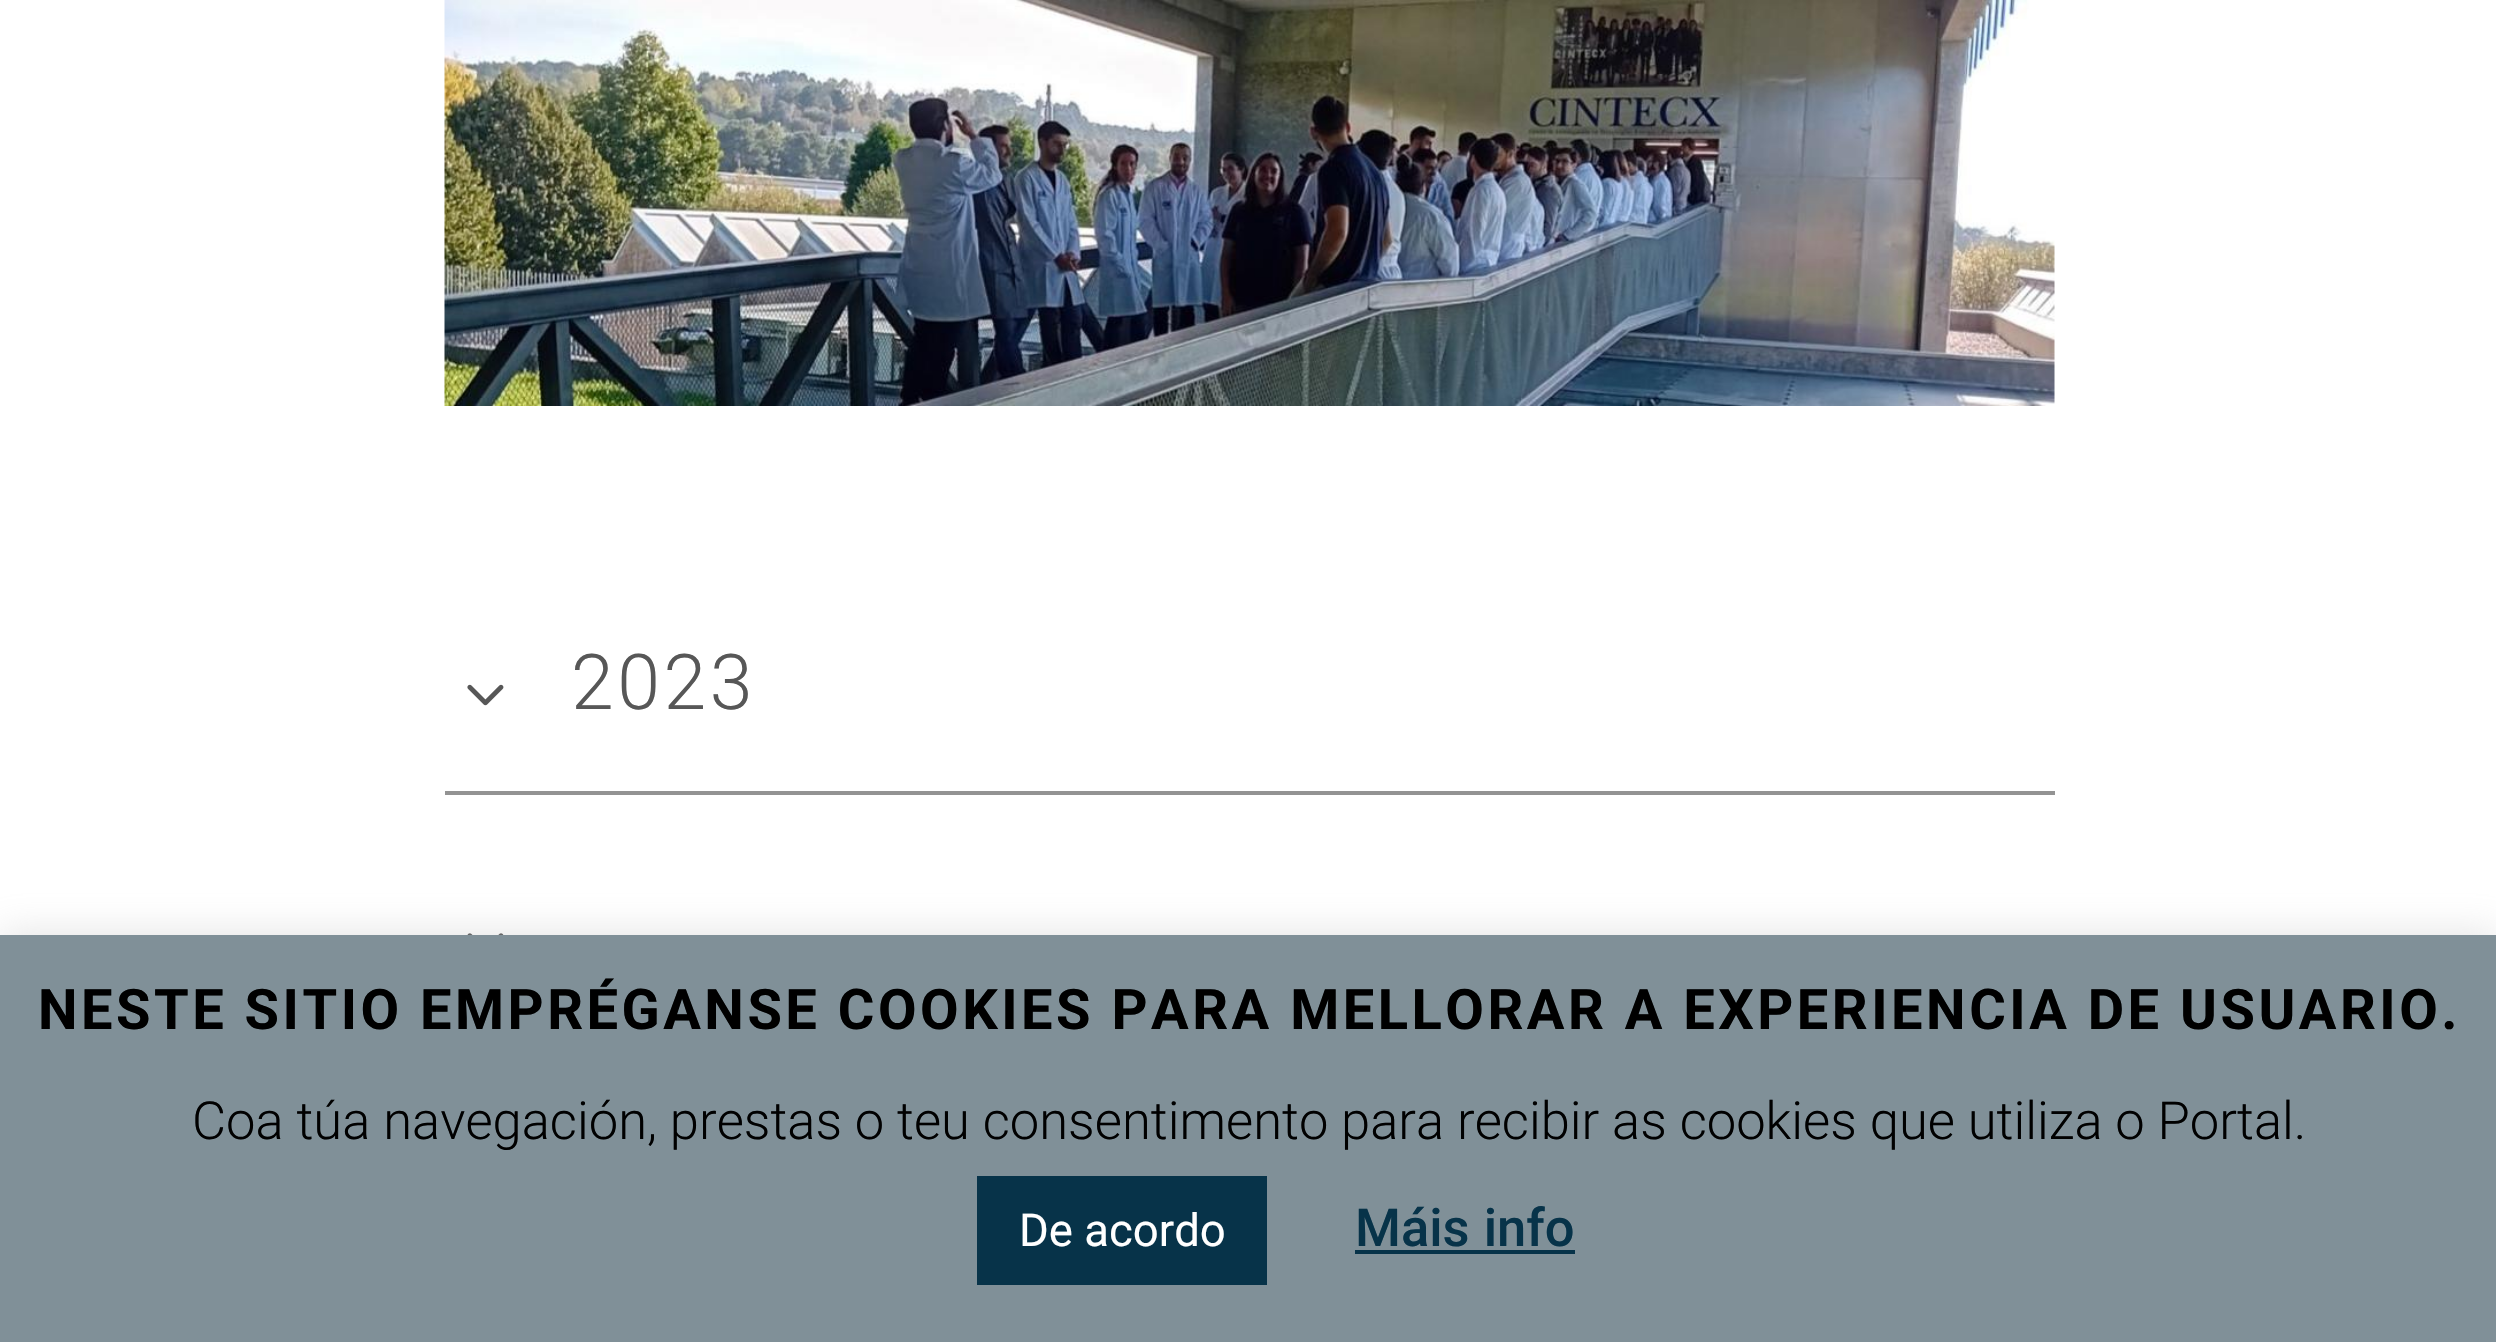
void draw(SkCanvas* canvas) {
  SkPaint paint;
  paint.setAntiAlias(true);
  auto face = [&](const char* family, int weight, float size, bool italic = false) {
    SkFontStyle style(weight, SkFontStyle::kNormal_Width,
      italic ? SkFontStyle::kItalic_Slant : SkFontStyle::kUpright_Slant);
    SkFont result(fontMgr->matchFamilyStyle(family, style), size);
    result.setSubpixel(true);
    return result;
  };
  auto writeSpaced = [&](const char* s, float x, float y, const SkFont& font, const SkPaint& ink, float letter, float word) {
    std::vector<SkGlyphID> glyphs(font.countText(s, strlen(s), SkTextEncoding::kUTF8));
    std::vector<float> xs(glyphs.size());
    font.textToGlyphs(s, strlen(s), SkTextEncoding::kUTF8, glyphs);
    font.getXPos(glyphs, xs, x);
    float extra = 0;
    for (size_t i = 0; i < glyphs.size(); i++) {
      xs[i] += extra;
      extra += letter + word * (glyphs[i] == font.unicharToGlyph(' '));
    }
    canvas->drawTextBlob(SkTextBlob::MakeFromPosHGlyphs(glyphs, xs, y, font), 0, 0, ink);
  };
  auto paste = [&](const char* path, float x, float y, float w, float h) {
    auto image = SkImages::DeferredFromEncodedData(SkData::MakeFromFileName(path));
    canvas->drawImageRect(image, SkRect::MakeXYWH(x, y, w, h), SkSamplingOptions());
  };
  canvas->clear(0xffffffff);
  paste("img/1.png", 444, 0, 1611, 406);
  paint.setColor(0xff939393);
  canvas->drawRect(SkRect::MakeXYWH(445, 791, 1610, 4), paint);
  paste("img/2.png", 467, 684, 37, 22);
  paste("img/3.png", 467, 933, 37, 2);
  paint.setColor(0x4dacabab);
  paint.setMaskFilter(SkMaskFilter::MakeBlur(kNormal_SkBlurStyle, 17.5f));
  canvas->drawRect(SkRect::MakeXYWH(0, 931, 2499, 410), paint);
  paint.setMaskFilter(nullptr);
  {
    const struct { float x, y, w, h; SkColor color; } items[] = {
      {0, 935, 2496, 407, 0xff809098},
      {977, 1176, 290, 109, 0xff073349},
      {1355, 1250, 220, 4, 0xff073349},
    };
    for (auto [x, y, w, h, color] : items) {
      paint.setColor(color);
      canvas->drawRect(SkRect::MakeXYWH(x, y, w, h), paint);
    }
  }
  auto f0 = face("Roboto", 300, 77);
  paint.setColor(0xff575757);
  writeSpaced("2023", 571, 709, f0, paint, 3.5f, 0);
  auto f1 = face("Roboto", 700, 56);
  paint.setColor(0xff000000);
  writeSpaced("NESTE SITIO EMPRÉGANSE COOKIES PARA MELLORAR A EXPERIENCIA DE USUARIO.", 38, 1029, f1, paint, 3.5f, 0);
  auto f2 = face("Roboto", 300, 52.5f);
  canvas->drawString("Coa túa navegación, prestas o teu consentimento para recibir as cookies que utiliza o Portal.", 192, 1139, f2, paint);
  auto f3 = face("Roboto", 400, 45.5f);
  paint.setColor(0xffffffff);
  canvas->drawString("De acordo", 1019, 1246, f3, paint);
  auto f4 = face("Roboto", 500, 52.5f);
  paint.setColor(0xff073349);
  writeSpaced("Máis info", 1355, 1246, f4, paint, 0, 1);
}
